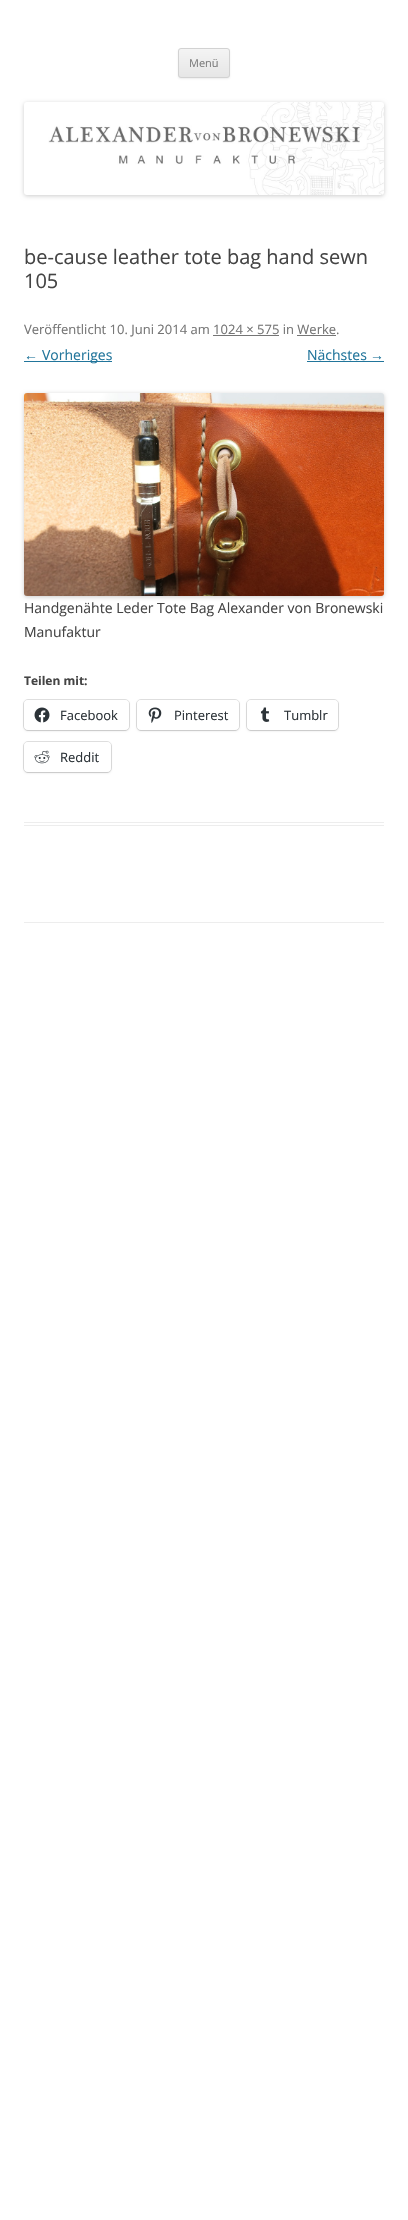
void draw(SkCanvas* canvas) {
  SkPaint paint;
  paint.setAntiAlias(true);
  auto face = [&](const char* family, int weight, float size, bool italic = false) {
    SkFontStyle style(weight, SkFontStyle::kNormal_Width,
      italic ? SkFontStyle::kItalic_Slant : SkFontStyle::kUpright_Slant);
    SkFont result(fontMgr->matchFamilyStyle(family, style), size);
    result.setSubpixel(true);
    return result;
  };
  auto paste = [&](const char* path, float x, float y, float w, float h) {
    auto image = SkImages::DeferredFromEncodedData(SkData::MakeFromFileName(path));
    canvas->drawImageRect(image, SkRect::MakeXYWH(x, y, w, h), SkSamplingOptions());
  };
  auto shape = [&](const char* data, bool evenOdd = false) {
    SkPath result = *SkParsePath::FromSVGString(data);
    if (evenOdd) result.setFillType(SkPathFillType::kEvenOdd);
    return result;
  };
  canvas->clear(0xffffffff);
  paint.setColor(0x1a404040);
  paint.setMaskFilter(SkMaskFilter::MakeBlur(kNormal_SkBlurStyle, 1));
  canvas->drawRoundRect(SkRect::MakeXYWH(178, 49, 52, 30), 3, 3, paint);
  paint.setMaskFilter(nullptr);
  canvas->save();
  canvas->clipPath(shape("M181 48H227C228.5 48 230 49.5 230 51V75C230 76.5 228.5 78 227 78H181C179.5 78 178 76.5 178 75V51C178 49.5 179.5 48 181 48Z"), true);
  {
    const SkColor colors[] = {0xfff4f4f4, 0xffe6e6e6};
    const float stops[] = {0, 1};
    const SkPoint ends[] = {{204, 49}, {204, 77}};
    paint.setShader(SkGradientShader::MakeLinear(ends, colors, stops, 2, SkTileMode::kClamp));
    paint.setAlpha(255);
  }
  canvas->drawRect(SkRect::MakeXYWH(178, 49, 52, 28), paint);
  canvas->restore();
  paint.setStroke(true);
  paint.setStrokeWidth(1);
  paint.setShader(nullptr);
  paint.setColor(0xffd2d2d2);
  canvas->drawRoundRect(SkRect::MakeXYWH(178.5f, 48.5f, 51, 29), 2.5f, 2.5f, paint);
  paint.setStroke(false);
  paint.setColor(0x33000000);
  paint.setMaskFilter(SkMaskFilter::MakeBlur(kNormal_SkBlurStyle, 2));
  canvas->drawRoundRect(SkRect::MakeXYWH(24, 103, 360, 93), 3, 3, paint);
  paint.setMaskFilter(nullptr);
  paste("img/1.png", 24, 102, 360, 93);
  {
    const struct { float x, y, w, h; SkColor color; } items[] = {
      {24, 822, 360, 1, 0xffededed},
      {24, 825, 360, 1, 0xffededed},
      {213, 335, 66, 1, 0xff757575},
      {297, 335, 39, 1, 0xff757575},
      {24, 361, 88, 1, 0xff21759b},
      {307, 361, 77, 1, 0xff21759b},
    };
    for (auto [x, y, w, h, color] : items) {
      paint.setColor(color);
      canvas->drawRect(SkRect::MakeXYWH(x, y, w, h), paint);
    }
  }
  paint.setColor(0x33000000);
  paint.setMaskFilter(SkMaskFilter::MakeBlur(kNormal_SkBlurStyle, 2));
  canvas->drawRoundRect(SkRect::MakeXYWH(24, 394, 360, 203), 3, 3, paint);
  paint.setMaskFilter(nullptr);
  paste("img/2.png", 24, 393, 360, 203);
  paint.setStroke(true);
  paint.setColor(0xffe0e0e0);
  canvas->drawRoundRect(SkRect::MakeXYWH(23.5f, 699.5f, 106, 31), 4.5f, 4.5f, paint);
  paint.setStroke(false);
  paint.setColor(0x1f000000);
  paint.setMaskFilter(SkMaskFilter::MakeBlur(kNormal_SkBlurStyle, 1));
  canvas->drawRoundRect(SkRect::MakeXYWH(24, 701, 105, 30), 4, 4, paint);
  paint.setMaskFilter(nullptr);
  paint.setColor(0xffffffff);
  canvas->drawRoundRect(SkRect::MakeXYWH(24, 700, 105, 30), 4, 4, paint);
  paste("img/3.png", 34, 707, 16, 16);
  paint.setStroke(true);
  paint.setColor(0xffe0e0e0);
  canvas->drawRoundRect(SkRect::MakeXYWH(136.5f, 699.5f, 103, 31), 4.5f, 4.5f, paint);
  paint.setStroke(false);
  paint.setColor(0x1f000000);
  paint.setMaskFilter(SkMaskFilter::MakeBlur(kNormal_SkBlurStyle, 1));
  canvas->drawRoundRect(SkRect::MakeXYWH(137, 701, 102, 30), 4, 4, paint);
  paint.setMaskFilter(nullptr);
  paint.setColor(0xffffffff);
  canvas->drawRoundRect(SkRect::MakeXYWH(137, 700, 102, 30), 4, 4, paint);
  paste("img/4.png", 148, 707, 14, 16);
  paint.setStroke(true);
  paint.setColor(0xffe0e0e0);
  canvas->drawRoundRect(SkRect::MakeXYWH(246.5f, 699.5f, 92, 31), 4.5f, 4.5f, paint);
  paint.setStroke(false);
  paint.setColor(0x1f000000);
  paint.setMaskFilter(SkMaskFilter::MakeBlur(kNormal_SkBlurStyle, 1));
  canvas->drawRoundRect(SkRect::MakeXYWH(247, 701, 91, 30), 4, 4, paint);
  paint.setMaskFilter(nullptr);
  paint.setColor(0xffffffff);
  canvas->drawRoundRect(SkRect::MakeXYWH(247, 700, 91, 30), 4, 4, paint);
  paste("img/5.png", 260, 707, 10, 15);
  paint.setStroke(true);
  paint.setColor(0xffe0e0e0);
  canvas->drawRoundRect(SkRect::MakeXYWH(23.5f, 741.5f, 88, 31), 4.5f, 4.5f, paint);
  paint.setStroke(false);
  paint.setColor(0x1f000000);
  paint.setMaskFilter(SkMaskFilter::MakeBlur(kNormal_SkBlurStyle, 1));
  canvas->drawRoundRect(SkRect::MakeXYWH(24, 743, 87, 30), 4, 4, paint);
  paint.setMaskFilter(nullptr);
  paint.setColor(0xffffffff);
  canvas->drawRoundRect(SkRect::MakeXYWH(24, 742, 87, 30), 4, 4, paint);
  paste("img/6.png", 34, 750, 16, 14);
  paint.setColor(0xffededed);
  canvas->drawRect(SkRect::MakeXYWH(24, 922, 360, 1), paint);
  auto f0 = face("Open Sans", 400, 11);
  paint.setColor(0xff7c7c7c);
  canvas->drawString("Menü", 189, 67, f0, paint);
  auto f1 = face("Open Sans", 400, 20);
  paint.setColor(0xff444444);
  canvas->drawString("be-cause leather tote bag hand sewn", 24, 264, f1, paint);
  canvas->drawString("105", 24, 288, f1, paint);
  auto f2 = face("Open Sans", 400, 13);
  paint.setColor(0xff757575);
  canvas->drawString("Veröffentlicht 10. Juni 2014 am 1024 × 575 in Werke.", 24, 334, f2, paint);
  auto f3 = face("Liberation Sans", 400, 14);
  paint.setColor(0xff21759b);
  canvas->drawString("←", 24, 360, f3, paint);
  auto f4 = face("Open Sans", 400, 14);
  canvas->drawString("Vorheriges", 42, 360, f4, paint);
  canvas->drawString("Nächstes", 307, 360, f4, paint);
  canvas->drawString("→", 370, 360, f3, paint);
  paint.setColor(0xff444444);
  canvas->drawString("Handgenähte Leder Tote Bag Alexander von Bronewski", 24, 613, f4, paint);
  canvas->drawString("Manufaktur", 24, 637, f4, paint);
  auto f5 = face("Open Sans", 700, 12);
  canvas->drawString("Teilen mit:", 24, 685, f5, paint);
  paint.setColor(0xff2c3338);
  {
    const struct { const char* s; float x, y; } items[] = {
      {"Facebook", 60, 720},
      {"Pinterest", 174, 720},
      {"Tumblr", 284, 720},
      {"Reddit", 60, 762},
    };
    for (auto [s, x, y] : items) {
      canvas->drawString(s, x, y, f2, paint);
    }
  }
}
